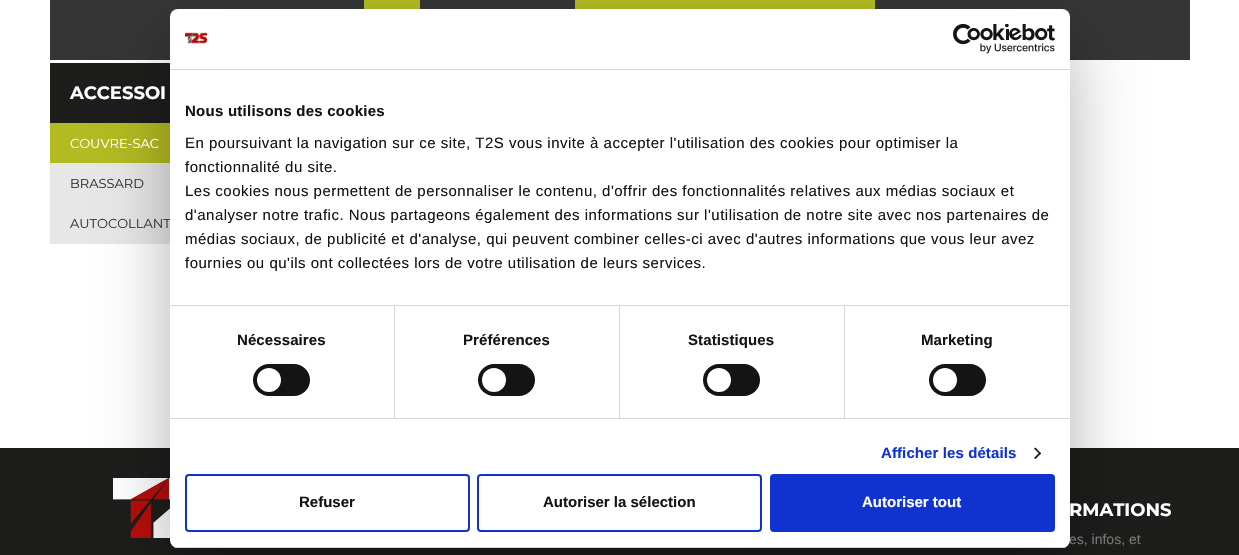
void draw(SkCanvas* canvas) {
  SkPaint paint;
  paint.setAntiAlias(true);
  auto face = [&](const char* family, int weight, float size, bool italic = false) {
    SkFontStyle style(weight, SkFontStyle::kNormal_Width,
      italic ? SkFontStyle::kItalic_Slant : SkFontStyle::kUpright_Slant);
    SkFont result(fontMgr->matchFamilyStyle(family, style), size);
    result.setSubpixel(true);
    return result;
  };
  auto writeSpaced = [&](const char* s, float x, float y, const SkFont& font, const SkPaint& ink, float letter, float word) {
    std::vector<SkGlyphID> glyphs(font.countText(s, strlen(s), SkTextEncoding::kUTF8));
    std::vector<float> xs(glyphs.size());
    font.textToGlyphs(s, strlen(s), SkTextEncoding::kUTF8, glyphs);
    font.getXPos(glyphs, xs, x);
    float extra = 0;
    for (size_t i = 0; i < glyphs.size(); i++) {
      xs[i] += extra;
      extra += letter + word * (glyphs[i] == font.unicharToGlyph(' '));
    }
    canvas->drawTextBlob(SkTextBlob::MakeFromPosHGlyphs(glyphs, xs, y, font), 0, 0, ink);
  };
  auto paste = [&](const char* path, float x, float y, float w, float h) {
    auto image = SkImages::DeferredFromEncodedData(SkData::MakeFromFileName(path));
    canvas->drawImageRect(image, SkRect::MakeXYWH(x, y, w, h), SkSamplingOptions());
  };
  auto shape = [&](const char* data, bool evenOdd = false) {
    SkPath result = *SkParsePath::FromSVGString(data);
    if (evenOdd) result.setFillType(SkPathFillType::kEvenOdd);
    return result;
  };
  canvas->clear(0xffffffff);
  {
    const struct { float x, y, w, h; SkColor color; } items[] = {
      {50, 0, 1140, 60, 0xff353536},
      {364, 0, 56, 9, 0xffb2bb22},
      {575, 0, 300, 9, 0xffb2bb22},
      {50, 63, 120, 60, 0xff1d1d1b},
      {50, 163, 120, 81, 0xffe7e7e7},
      {50, 123, 120, 40, 0xffb2bb22},
      {0, 448, 1239, 107, 0xff1d1d1b},
    };
    for (auto [x, y, w, h, color] : items) {
      paint.setColor(color);
      canvas->drawRect(SkRect::MakeXYWH(x, y, w, h), paint);
    }
  }
  paste("img/1.png", 113, 478, 57, 60);
  paint.setColor(0x4d000000);
  paint.setMaskFilter(SkMaskFilter::MakeBlur(kNormal_SkBlurStyle, 34));
  canvas->drawRoundRect(SkRect::MakeXYWH(170, 41, 900, 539), 8, 8, paint);
  paint.setMaskFilter(nullptr);
  auto f0 = face("Montserrat", 700, 18);
  paint.setColor(0xffffffff);
  canvas->drawString("ACCESSOI", 70, 99, f0, paint);
  auto f1 = face("Montserrat", 400, 13);
  canvas->drawString("COUVRE-SAC", 70, 148, f1, paint);
  paint.setColor(0xff333333);
  canvas->drawString("BRASSARD", 70, 188, f1, paint);
  canvas->drawString("AUTOCOLLANT", 70, 228, f1, paint);
  paint.setColor(0xffffffff);
  canvas->drawString("RMATIONS", 1069, 516, f0, paint);
  auto f2 = face("Liberation Sans", 400, 14);
  paint.setColor(0xff777777);
  canvas->drawString("es, infos, et", 1069, 544, f2, paint);
  paint.setColor(0xffffffff);
  canvas->drawRoundRect(SkRect::MakeXYWH(170, 9, 900, 539), 8, 8, paint);
  paint.setColor(0xffd6d6d6);
  canvas->drawRect(SkRect::MakeXYWH(170, 69, 900, 1), paint);
  paste("img/2.png", 185, 32, 22, 12);
  paste("img/3.png", 953, 24, 102, 30);
  canvas->drawRect(SkRect::MakeXYWH(170, 305, 900, 1), paint);
  auto f3 = face("Liberation Sans", 700, 15);
  paint.setColor(0xff141414);
  writeSpaced("Nous utilisons des cookies", 185, 116, f3, paint, 0.25f, 0);
  auto f4 = face("Liberation Sans", 400, 15);
  {
    const struct { const char* s; float x, y; } items[] = {
      {"En poursuivant la navigation sur ce site, T2S vous invite à accepter l'utilisation des cookies pour optimiser la", 185, 148},
      {"fonctionnalité du site.", 185, 172},
      {"Les cookies nous permettent de personnaliser le contenu, d'offrir des fonctionnalités relatives aux médias sociaux et", 185, 196},
      {"d'analyser notre trafic. Nous partageons également des informations sur l'utilisation de notre site avec nos partenaires de", 185, 220},
      {"médias sociaux, de publicité et d'analyse, qui peuvent combiner celles-ci avec d'autres informations que vous leur avez", 185, 244},
      {"fournies ou qu'ils ont collectées lors de votre utilisation de leurs services.", 185, 268},
    };
    for (auto [s, x, y] : items) {
      writeSpaced(s, x, y, f4, paint, 0.5f, 0);
    }
  }
  paint.setColor(0xffd6d6d6);
  canvas->drawRect(SkRect::MakeXYWH(170, 418, 900, 1), paint);
  canvas->drawRect(SkRect::MakeXYWH(394, 306, 1, 112), paint);
  paint.setColor(0xff141414);
  writeSpaced("Nécessaires", 237, 345, f3, paint, 0.1f, 0);
  canvas->drawRoundRect(SkRect::MakeXYWH(253, 364, 57, 32), 16, 16, paint);
  paint.setColor(0xffffffff);
  canvas->drawCircle(269, 380, 12, paint);
  paint.setColor(0xffd6d6d6);
  canvas->drawRect(SkRect::MakeXYWH(619, 306, 1, 112), paint);
  paint.setColor(0xff141414);
  writeSpaced("Préférences", 463, 345, f3, paint, 0.1f, 0);
  canvas->drawRoundRect(SkRect::MakeXYWH(478, 364, 57, 32), 16, 16, paint);
  paint.setColor(0xffffffff);
  canvas->drawCircle(494, 380, 12, paint);
  paint.setColor(0xffd6d6d6);
  canvas->drawRect(SkRect::MakeXYWH(844, 306, 1, 112), paint);
  paint.setColor(0xff141414);
  writeSpaced("Statistiques", 688, 345, f3, paint, 0.1f, 0);
  canvas->drawRoundRect(SkRect::MakeXYWH(703, 364, 57, 32), 16, 16, paint);
  paint.setColor(0xffffffff);
  canvas->drawCircle(719, 380, 12, paint);
  paint.setColor(0xff141414);
  writeSpaced("Marketing", 921, 345, f3, paint, 0.1f, 0);
  canvas->drawRoundRect(SkRect::MakeXYWH(929, 364, 57, 32), 16, 16, paint);
  paint.setColor(0xffffffff);
  canvas->drawCircle(945, 380, 12, paint);
  paint.setColor(0xff1032cf);
  writeSpaced("Afficher les détails", 881, 458, f3, paint, 0.1f, 0);
  paint.setColor(0xff141414);
  canvas->drawPath(shape("M1035.5 447.5L1041 453.5L1040 454.5L1034 448.5Z"), paint);
  canvas->drawPath(shape("M1040 452L1041 453.5L1035.5 459L1034 458Z"), paint);
  canvas->save();
  canvas->clipPath(shape("M178 9H1062C1066.5 9 1070 12.5 1070 17V540C1070 544.5 1066.5 548 1062 548H178C173.5 548 170 544.5 170 540V17C170 12.5 173.5 9 178 9Z"), true);
  paint.setColor(0xffd6d6d6);
  canvas->drawRect(SkRect::MakeXYWH(170, 547, 900, 1), paint);
  canvas->restore();
  paint.setStroke(true);
  paint.setStrokeWidth(2);
  paint.setColor(0xff1032cf);
  canvas->drawRoundRect(SkRect::MakeXYWH(186, 475, 283, 56), 3, 3, paint);
  paint.setStroke(false);
  paint.setColor(0xff141414);
  canvas->drawString("Refuser", 299, 507, f3, paint);
  paint.setStroke(true);
  paint.setColor(0xff1032cf);
  canvas->drawRoundRect(SkRect::MakeXYWH(478, 475, 283, 56), 3, 3, paint);
  paint.setStroke(false);
  paint.setColor(0xff141414);
  canvas->drawString("Autoriser la sélection", 543, 507, f3, paint);
  paint.setColor(0xff1032cf);
  canvas->drawRoundRect(SkRect::MakeXYWH(771, 475, 283, 56), 3, 3, paint);
  paint.setStroke(true);
  canvas->drawRoundRect(SkRect::MakeXYWH(771, 475, 283, 56), 3, 3, paint);
  paint.setStroke(false);
  paint.setColor(0xffffffff);
  canvas->drawString("Autoriser tout", 862, 507, f3, paint);
}
